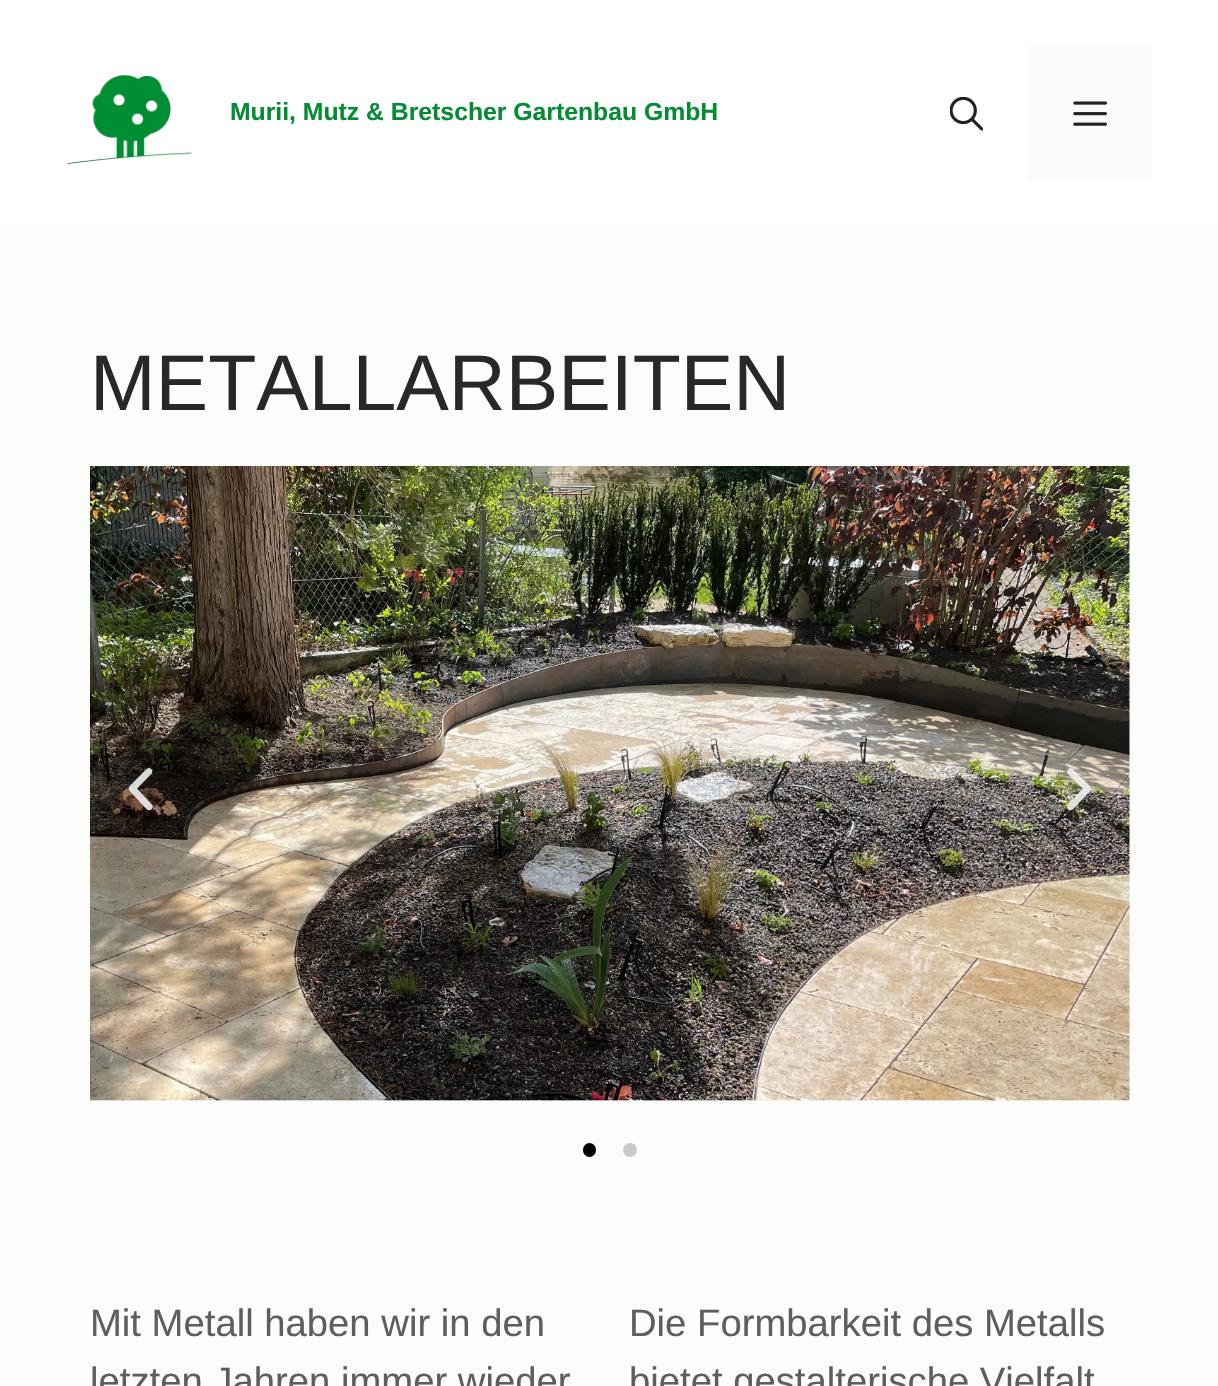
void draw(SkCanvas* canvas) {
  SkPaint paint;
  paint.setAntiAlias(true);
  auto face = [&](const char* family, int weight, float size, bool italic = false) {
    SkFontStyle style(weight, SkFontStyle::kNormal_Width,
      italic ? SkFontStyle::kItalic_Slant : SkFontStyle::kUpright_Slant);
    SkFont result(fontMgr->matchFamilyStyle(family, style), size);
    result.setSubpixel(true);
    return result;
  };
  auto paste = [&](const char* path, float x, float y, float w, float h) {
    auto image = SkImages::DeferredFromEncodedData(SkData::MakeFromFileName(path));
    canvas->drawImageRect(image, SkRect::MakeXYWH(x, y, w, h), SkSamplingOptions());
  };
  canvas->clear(0xfffcfcfa);
  paint.setColor(0xffffffff);
  canvas->drawRect(SkRect::MakeXYWH(0, 0, 1218, 225), paint);
  paste("img/1.png", 67, 75, 125, 90);
  paste("img/2.png", 950, 97, 33, 34);
  paint.setColor(0xfffafafa);
  canvas->drawRect(SkRect::MakeXYWH(1028, 45, 124, 135), paint);
  paste("img/3.png", 1073, 101, 34, 25);
  paste("img/4.png", 90, 466, 1040, 635);
  paste("img/5.png", 129, 768, 24, 43);
  paste("img/6.png", 1067, 768, 24, 43);
  paint.setColor(0xff000000);
  canvas->drawRoundRect(SkRect::MakeXYWH(583, 1143, 13, 14), 6.5f, 6.5f, paint);
  paint.setColor(0xffcacac8);
  canvas->drawCircle(630, 1150, 7, paint);
  auto f0 = face("Liberation Sans", 700, 24.75f);
  paint.setColor(0xff048c33);
  canvas->drawString("Murii, Mutz & Bretscher Gartenbau GmbH", 230, 120, f0, paint);
  auto f1 = face("Liberation Sans", 400, 78.75f);
  paint.setColor(0xff282828);
  canvas->drawString("METALLARBEITEN", 90, 410, f1, paint);
  auto f2 = face("Liberation Sans", 400, 38.25f);
  paint.setColor(0xff5e5e5e);
  {
    const struct { const char* s; float x, y; } items[] = {
      {"Mit Metall haben wir in den", 90, 1336},
      {"letzten Jahren immer wieder", 90, 1394},
      {"Die Formbarkeit des Metalls", 629, 1336},
      {"bietet gestalterische Vielfalt", 629, 1394},
    };
    for (auto [s, x, y] : items) {
      canvas->drawString(s, x, y, f2, paint);
    }
  }
}
